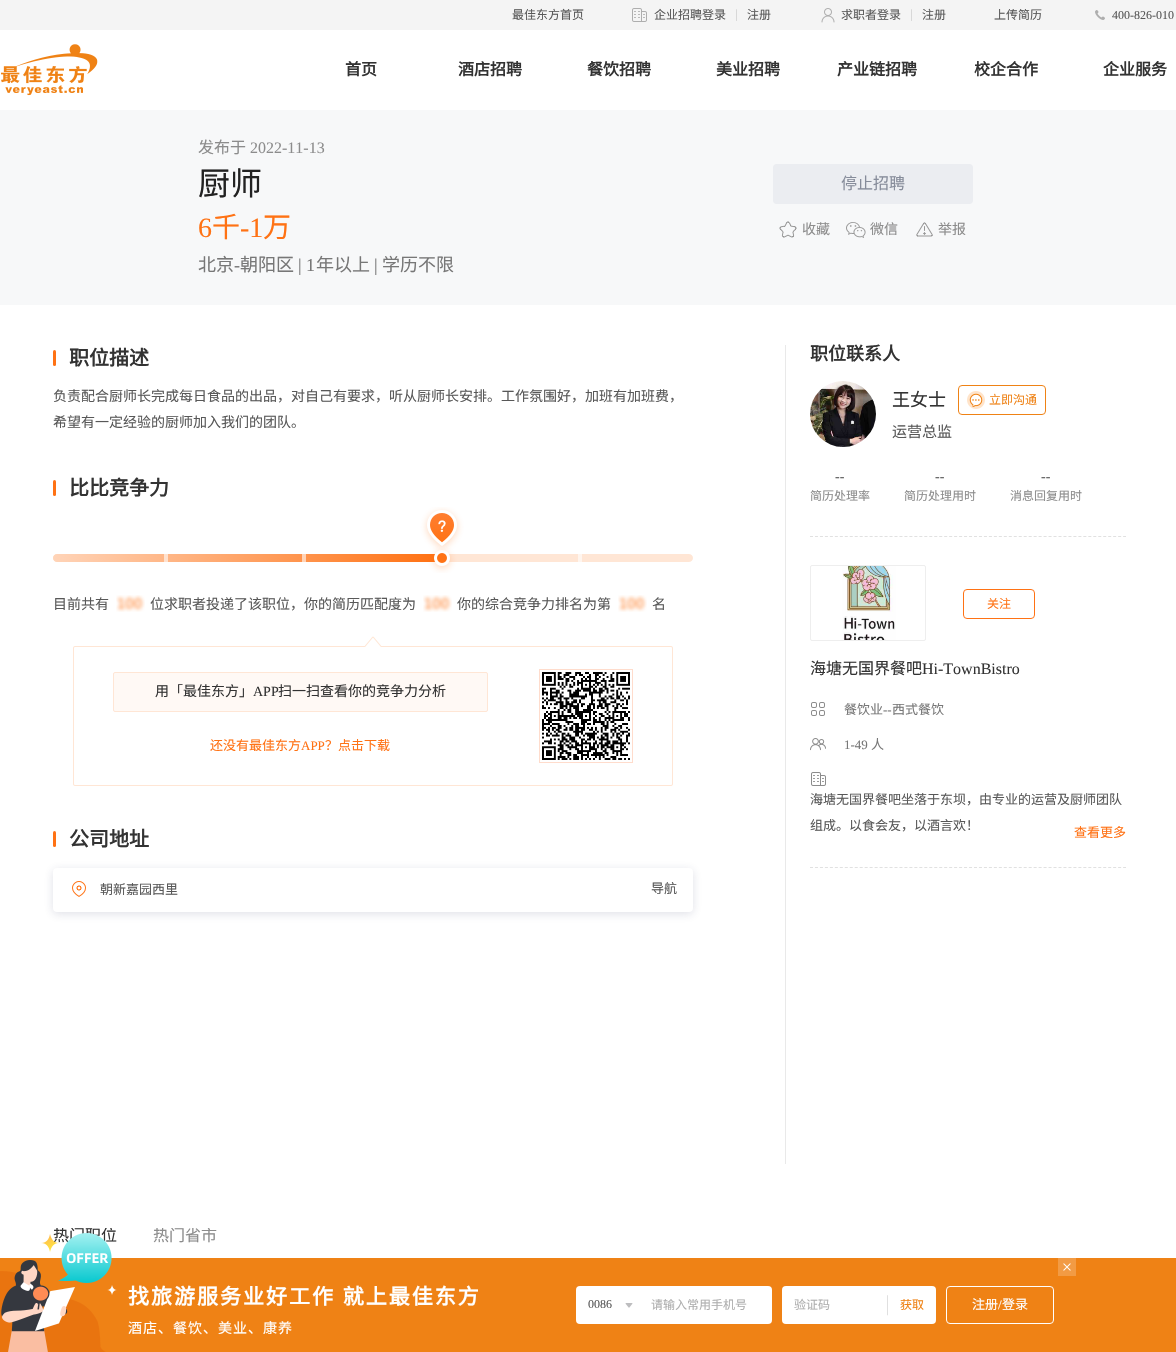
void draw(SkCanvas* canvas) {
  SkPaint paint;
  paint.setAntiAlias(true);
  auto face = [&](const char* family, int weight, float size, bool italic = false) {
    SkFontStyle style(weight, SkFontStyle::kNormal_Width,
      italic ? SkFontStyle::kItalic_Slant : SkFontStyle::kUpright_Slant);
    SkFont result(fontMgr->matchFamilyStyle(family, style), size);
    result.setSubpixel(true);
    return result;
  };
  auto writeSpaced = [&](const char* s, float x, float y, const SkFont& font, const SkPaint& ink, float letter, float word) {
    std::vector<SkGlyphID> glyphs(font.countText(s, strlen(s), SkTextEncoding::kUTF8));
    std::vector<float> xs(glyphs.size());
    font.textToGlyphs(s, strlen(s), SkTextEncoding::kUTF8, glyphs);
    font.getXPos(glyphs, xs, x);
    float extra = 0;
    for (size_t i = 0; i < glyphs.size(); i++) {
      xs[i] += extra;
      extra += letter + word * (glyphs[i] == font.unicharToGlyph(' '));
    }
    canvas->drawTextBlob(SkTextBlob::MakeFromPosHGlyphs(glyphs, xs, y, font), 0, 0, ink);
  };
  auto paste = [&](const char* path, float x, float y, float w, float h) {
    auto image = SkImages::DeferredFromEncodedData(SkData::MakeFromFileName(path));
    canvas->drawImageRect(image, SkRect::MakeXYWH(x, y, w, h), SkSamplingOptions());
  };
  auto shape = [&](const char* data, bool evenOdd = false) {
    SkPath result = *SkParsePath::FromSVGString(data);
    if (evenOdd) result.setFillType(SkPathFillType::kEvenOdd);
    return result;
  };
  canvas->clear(0xffffffff);
  paint.setColor(0xfff4f4f4);
  canvas->drawRect(SkRect::MakeXYWH(0, 0, 1176, 30), paint);
  paste("img/1.png", 632, 8, 15, 14);
  paint.setColor(0xffd8d8d8);
  canvas->drawRoundRect(SkRect::MakeXYWH(736, 9, 1, 12), 0.5f, 0.5f, paint);
  paste("img/2.png", 821, 8, 14, 15);
  canvas->drawRoundRect(SkRect::MakeXYWH(911, 9, 1, 12), 0.5f, 0.5f, paint);
  paste("img/3.png", 1095, 10, 10, 10);
  paste("img/4.png", 1, 44, 97, 52);
  paint.setColor(0xfff7f8f9);
  canvas->drawRect(SkRect::MakeXYWH(0, 110, 1176, 195), paint);
  paint.setColor(0xffebedf1);
  canvas->drawRoundRect(SkRect::MakeXYWH(773, 164, 200, 40), 4, 4, paint);
  paste("img/5.png", 779, 221, 18, 17);
  paste("img/6.png", 846, 222, 20, 16);
  paste("img/7.png", 916, 222, 17, 15);
  paint.setColor(0xffe9e9e9);
  canvas->drawRect(SkRect::MakeXYWH(785, 345, 1, 819), paint);
  paint.setColor(0xffff7214);
  canvas->drawRoundRect(SkRect::MakeXYWH(53, 350, 3, 16), 1.5f, 1.5f, paint);
  canvas->drawRoundRect(SkRect::MakeXYWH(53, 480, 3, 16), 1.5f, 1.5f, paint);
  paste("img/8.png", 53, 507, 640, 66);
  paste("img/9.png", 116, 595, 29, 17);
  paste("img/9.png", 423, 595, 29, 17);
  paste("img/9.png", 618, 595, 29, 17);
  paste("img/10.png", 73, 636, 600, 150);
  paint.setColor(0xfffff9f5);
  canvas->drawRoundRect(SkRect::MakeXYWH(113.5f, 672.5f, 374, 39), 1.5f, 1.5f, paint);
  paint.setStroke(true);
  paint.setStrokeWidth(1);
  paint.setColor(0xffffe6d5);
  canvas->drawRoundRect(SkRect::MakeXYWH(113.5f, 672.5f, 374, 39), 1.5f, 1.5f, paint);
  paint.setColor(0xffffdccc);
  canvas->drawRect(SkRect::MakeXYWH(539.5f, 669.5f, 93, 93), paint);
  paste("img/11.png", 542, 672, 88, 88);
  paint.setStroke(false);
  paint.setColor(0xffff7214);
  canvas->drawRoundRect(SkRect::MakeXYWH(53, 831, 3, 16), 1.5f, 1.5f, paint);
  paint.setColor(0x262a3260);
  paint.setMaskFilter(SkMaskFilter::MakeBlur(kNormal_SkBlurStyle, 5));
  canvas->drawRoundRect(SkRect::MakeXYWH(53, 870, 640, 44), 4, 4, paint);
  paint.setMaskFilter(nullptr);
  paint.setColor(0xffffffff);
  canvas->drawRoundRect(SkRect::MakeXYWH(53, 868, 640, 44), 4, 4, paint);
  paste("img/12.png", 72, 881, 14, 16);
  paint.setStroke(true);
  paint.setColor(0xffe1e1e1);
  paint.setPathEffect(SkDashPathEffect::Make({{3, 1.97f}}, 0));
  canvas->drawPath(shape("M810 536.5H1126"), paint);
  paint.setPathEffect(nullptr);
  paste("img/13.png", 810, 381, 66, 66);
  paint.setColor(0xffef8215);
  canvas->drawRoundRect(SkRect::MakeXYWH(958.5f, 385.5f, 87, 29), 3.5f, 3.5f, paint);
  paste("img/14.png", 967, 391, 18, 18);
  paint.setColor(0xffe1e1e1);
  paint.setPathEffect(SkDashPathEffect::Make({{3, 1.97f}}, 0));
  canvas->drawPath(shape("M810 867.5H1126"), paint);
  paint.setPathEffect(nullptr);
  paint.setColor(0xffeeeeee);
  canvas->drawRoundRect(SkRect::MakeXYWH(810.5f, 565.5f, 115, 75), 1.5f, 1.5f, paint);
  paste("img/15.png", 842, 566, 54, 74);
  paint.setColor(0xffff7214);
  canvas->drawRoundRect(SkRect::MakeXYWH(963.5f, 589.5f, 71, 29), 3.5f, 3.5f, paint);
  paste("img/16.png", 811, 702, 14, 14);
  paste("img/17.png", 810, 738, 16, 13);
  paste("img/18.png", 811, 772, 15, 14);
  paint.setStroke(false);
  paint.setColor(0xffef8215);
  canvas->drawRect(SkRect::MakeXYWH(0, 1258, 1176, 94), paint);
  paste("img/20.png", 1058, 1258, 18, 18);
  paint.setColor(0xffffffff);
  canvas->drawRoundRect(SkRect::MakeXYWH(576, 1286, 196, 38), 4, 4, paint);
  paste("img/21.png", 625, 1303, 8, 5);
  canvas->drawRoundRect(SkRect::MakeXYWH(782, 1286, 154, 38), 4, 4, paint);
  paint.setColor(0xffe0e0e0);
  canvas->drawRoundRect(SkRect::MakeXYWH(887, 1295, 1, 21), 0.5f, 0.5f, paint);
  paint.setColor(0xffffffff);
  canvas->drawCircle(887.5f, 1315.5f, 0.5f, paint);
  paint.setStroke(true);
  canvas->drawRoundRect(SkRect::MakeXYWH(946.5f, 1286.5f, 107, 37), 3.5f, 3.5f, paint);
  auto f0 = face("Noto Sans CJK SC", 400, 12);
  paint.setStroke(false);
  paint.setColor(0xff585858);
  {
    const struct { const char* s; float x, y; } items[] = {
      {"最佳东方首页", 512, 19},
      {"企业招聘登录", 654, 19},
      {"注册", 747, 19},
      {"求职者登录", 841, 19},
      {"注册", 922, 19},
      {"上传简历", 994, 19},
    };
    for (auto [s, x, y] : items) {
      canvas->drawString(s, x, y, f0, paint);
    }
  }
  auto f1 = face("Liberation Serif", 400, 12);
  canvas->drawString("400-826-010", 1112, 19, f1, paint);
  auto f2 = face("Noto Sans CJK SC", 700, 16);
  paint.setColor(0xff333333);
  {
    const struct { const char* s; float x, y; } items[] = {
      {"首页", 345, 75},
      {"酒店招聘", 458, 75},
      {"餐饮招聘", 587, 75},
      {"美业招聘", 716, 75},
      {"产业链招聘", 837, 75},
      {"校企合作", 974, 75},
      {"企业服务", 1103, 75},
    };
    for (auto [s, x, y] : items) {
      canvas->drawString(s, x, y, f2, paint);
    }
  }
  auto f3 = face("Noto Sans CJK SC", 400, 16);
  paint.setColor(0xff8c8c8c);
  canvas->drawString("发布于", 198, 153, f3, paint);
  auto f4 = face("Liberation Serif", 400, 16);
  canvas->drawString("2022-11-13", 250, 153, f4, paint);
  auto f5 = face("Noto Sans CJK SC", 400, 32);
  paint.setColor(0xff222222);
  canvas->drawString("厨师", 198, 195, f5, paint);
  paint.setColor(0xff868c9a);
  canvas->drawString("停止招聘", 841, 189, f3, paint);
  auto f6 = face("Noto Sans CJK SC", 400, 14);
  paint.setColor(0xff8c8c8c);
  {
    const struct { const char* s; float x, y; } items[] = {
      {"收藏", 802, 234},
      {"微信", 870, 234},
      {"举报", 938, 234},
    };
    for (auto [s, x, y] : items) {
      canvas->drawString(s, x, y, f6, paint);
    }
  }
  auto f7 = face("Liberation Serif", 400, 28);
  paint.setColor(0xffff7214);
  canvas->drawString("6", 198, 237, f7, paint);
  auto f8 = face("Noto Sans CJK SC", 400, 28);
  canvas->drawString("千", 212, 237, f8, paint);
  canvas->drawString("-1", 240, 237, f7, paint);
  canvas->drawString("万", 263, 237, f8, paint);
  auto f9 = face("Noto Sans CJK SC", 400, 18);
  paint.setColor(0xff777777);
  canvas->drawString("北京", 198, 271, f9, paint);
  auto f10 = face("Liberation Serif", 400, 18);
  canvas->drawString("-", 234, 271, f10, paint);
  canvas->drawString("朝阳区", 240, 271, f9, paint);
  canvas->drawString("| 1", 298, 271, f10, paint);
  canvas->drawString("年以上", 316, 271, f9, paint);
  canvas->drawString("|", 374, 271, f10, paint);
  canvas->drawString("学历不限", 382, 271, f9, paint);
  auto f11 = face("Noto Sans CJK SC", 700, 20);
  paint.setColor(0xff333333);
  canvas->drawString("职位描述", 69, 365, f11, paint);
  paint.setColor(0xff585858);
  canvas->drawString("负责配合厨师长完成每日食品的出品，对自己有要求，听从厨师长安排。工作氛围好，加班有加班费，", 53, 401, f6, paint);
  canvas->drawString("希望有一定经验的厨师加入我们的团队。", 53, 427, f6, paint);
  paint.setColor(0xff333333);
  canvas->drawString("比比竞争力", 69, 495, f11, paint);
  paint.setColor(0xff585858);
  {
    const struct { const char* s; float x, y; } items[] = {
      {"目前共有", 53, 609},
      {"位求职者投递了该职位，你的简历匹配度为", 150, 609},
      {"你的综合竞争力排名为第", 457, 609},
      {"名", 652, 609},
    };
    for (auto [s, x, y] : items) {
      canvas->drawString(s, x, y, f6, paint);
    }
  }
  paint.setColor(0xff333333);
  canvas->drawString("用「最佳东方」", 155, 696, f6, paint);
  auto f12 = face("Liberation Serif", 400, 14);
  canvas->drawString("APP", 253, 696, f12, paint);
  canvas->drawString("扫一扫查看你的竞争力分析", 278, 696, f6, paint);
  auto f13 = face("Noto Sans CJK SC", 400, 13);
  paint.setColor(0xffff7214);
  canvas->drawString("还没有最佳东方", 210, 750, f13, paint);
  auto f14 = face("Liberation Serif", 400, 13);
  canvas->drawString("APP", 301, 750, f14, paint);
  canvas->drawString("？点击下载", 325, 750, f13, paint);
  paint.setColor(0xff333333);
  canvas->drawString("公司地址", 69, 846, f11, paint);
  paint.setColor(0xff585858);
  canvas->drawString("朝新嘉园西里", 100, 894, f13, paint);
  canvas->drawString("导航", 651, 893, f13, paint);
  auto f15 = face("Noto Sans CJK SC", 700, 18);
  paint.setColor(0xff333333);
  canvas->drawString("职位联系人", 810, 360, f15, paint);
  canvas->drawString("王女士", 892, 406, f9, paint);
  paint.setColor(0xffef8215);
  canvas->drawString("立即沟通", 989, 404, f0, paint);
  auto f16 = face("Noto Sans CJK SC", 400, 15);
  paint.setColor(0xff585858);
  canvas->drawString("运营总监", 892, 437, f16, paint);
  canvas->drawString("--", 835, 481, f12, paint);
  paint.setColor(0xff8c8c8c);
  canvas->drawString("简历处理率", 810, 500, f0, paint);
  paint.setColor(0xff585858);
  canvas->drawString("--", 935, 481, f12, paint);
  paint.setColor(0xff8c8c8c);
  canvas->drawString("简历处理用时", 904, 500, f0, paint);
  paint.setColor(0xff585858);
  canvas->drawString("--", 1041, 481, f12, paint);
  paint.setColor(0xff8c8c8c);
  canvas->drawString("消息回复用时", 1010, 500, f0, paint);
  paint.setColor(0xffff7214);
  canvas->drawString("关注", 987, 608, f0, paint);
  paint.setColor(0xff333333);
  canvas->drawString("海塘无国界餐吧", 810, 674, f3, paint);
  canvas->drawString("Hi-TownBistro", 922, 674, f4, paint);
  paint.setColor(0xff777777);
  canvas->drawString("餐饮业", 844, 714, f13, paint);
  canvas->drawString("--", 883, 714, f14, paint);
  canvas->drawString("西式餐饮", 892, 714, f13, paint);
  canvas->drawString("1-49", 844, 749, f14, paint);
  canvas->drawString("人", 871, 749, f13, paint);
  paint.setColor(0xff585858);
  canvas->drawString("海塘无国界餐吧坐落于东坝，由专业的运营及厨师团队", 810, 804, f13, paint);
  canvas->drawString("组成。以食会友，以酒言欢！", 810, 830, f13, paint);
  paint.setColor(0xffff7214);
  canvas->drawString("查看更多", 1074, 837, f13, paint);
  canvas->save();
  canvas->clipRect(SkRect::MakeXYWH(53, 1228, 1074, 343));
  paint.setColor(0xff333333);
  canvas->drawString("热门职位", 53, 1241, f3, paint);
  paint.setColor(0xff8c8c8c);
  canvas->drawString("热门省市", 153, 1241, f3, paint);
  canvas->restore();
  paste("img/19.png", 0, 1233, 117, 119);
  auto f17 = face("Noto Sans CJK SC", 700, 21);
  paint.setColor(0xffffffff);
  writeSpaced("找旅游服务业好工作 就上最佳东方", 128, 1304, f17, paint, 2, 1);
  writeSpaced("酒店、餐饮、美业、康养", 128, 1333, f6, paint, 1, 0);
  paint.setColor(0xff585858);
  canvas->drawString("0086", 588, 1308, f1, paint);
  paint.setColor(0xffaeaeae);
  canvas->drawString("请输入常用手机号", 651, 1309, f0, paint);
  canvas->drawString("验证码", 794, 1309, f0, paint);
  paint.setColor(0xffef8215);
  canvas->drawString("获取", 900, 1309, f0, paint);
  paint.setColor(0xffffffff);
  canvas->drawString("注册", 972, 1309, f13, paint);
  canvas->drawString("/", 998, 1309, f14, paint);
  canvas->drawString("登录", 1002, 1309, f13, paint);
}
